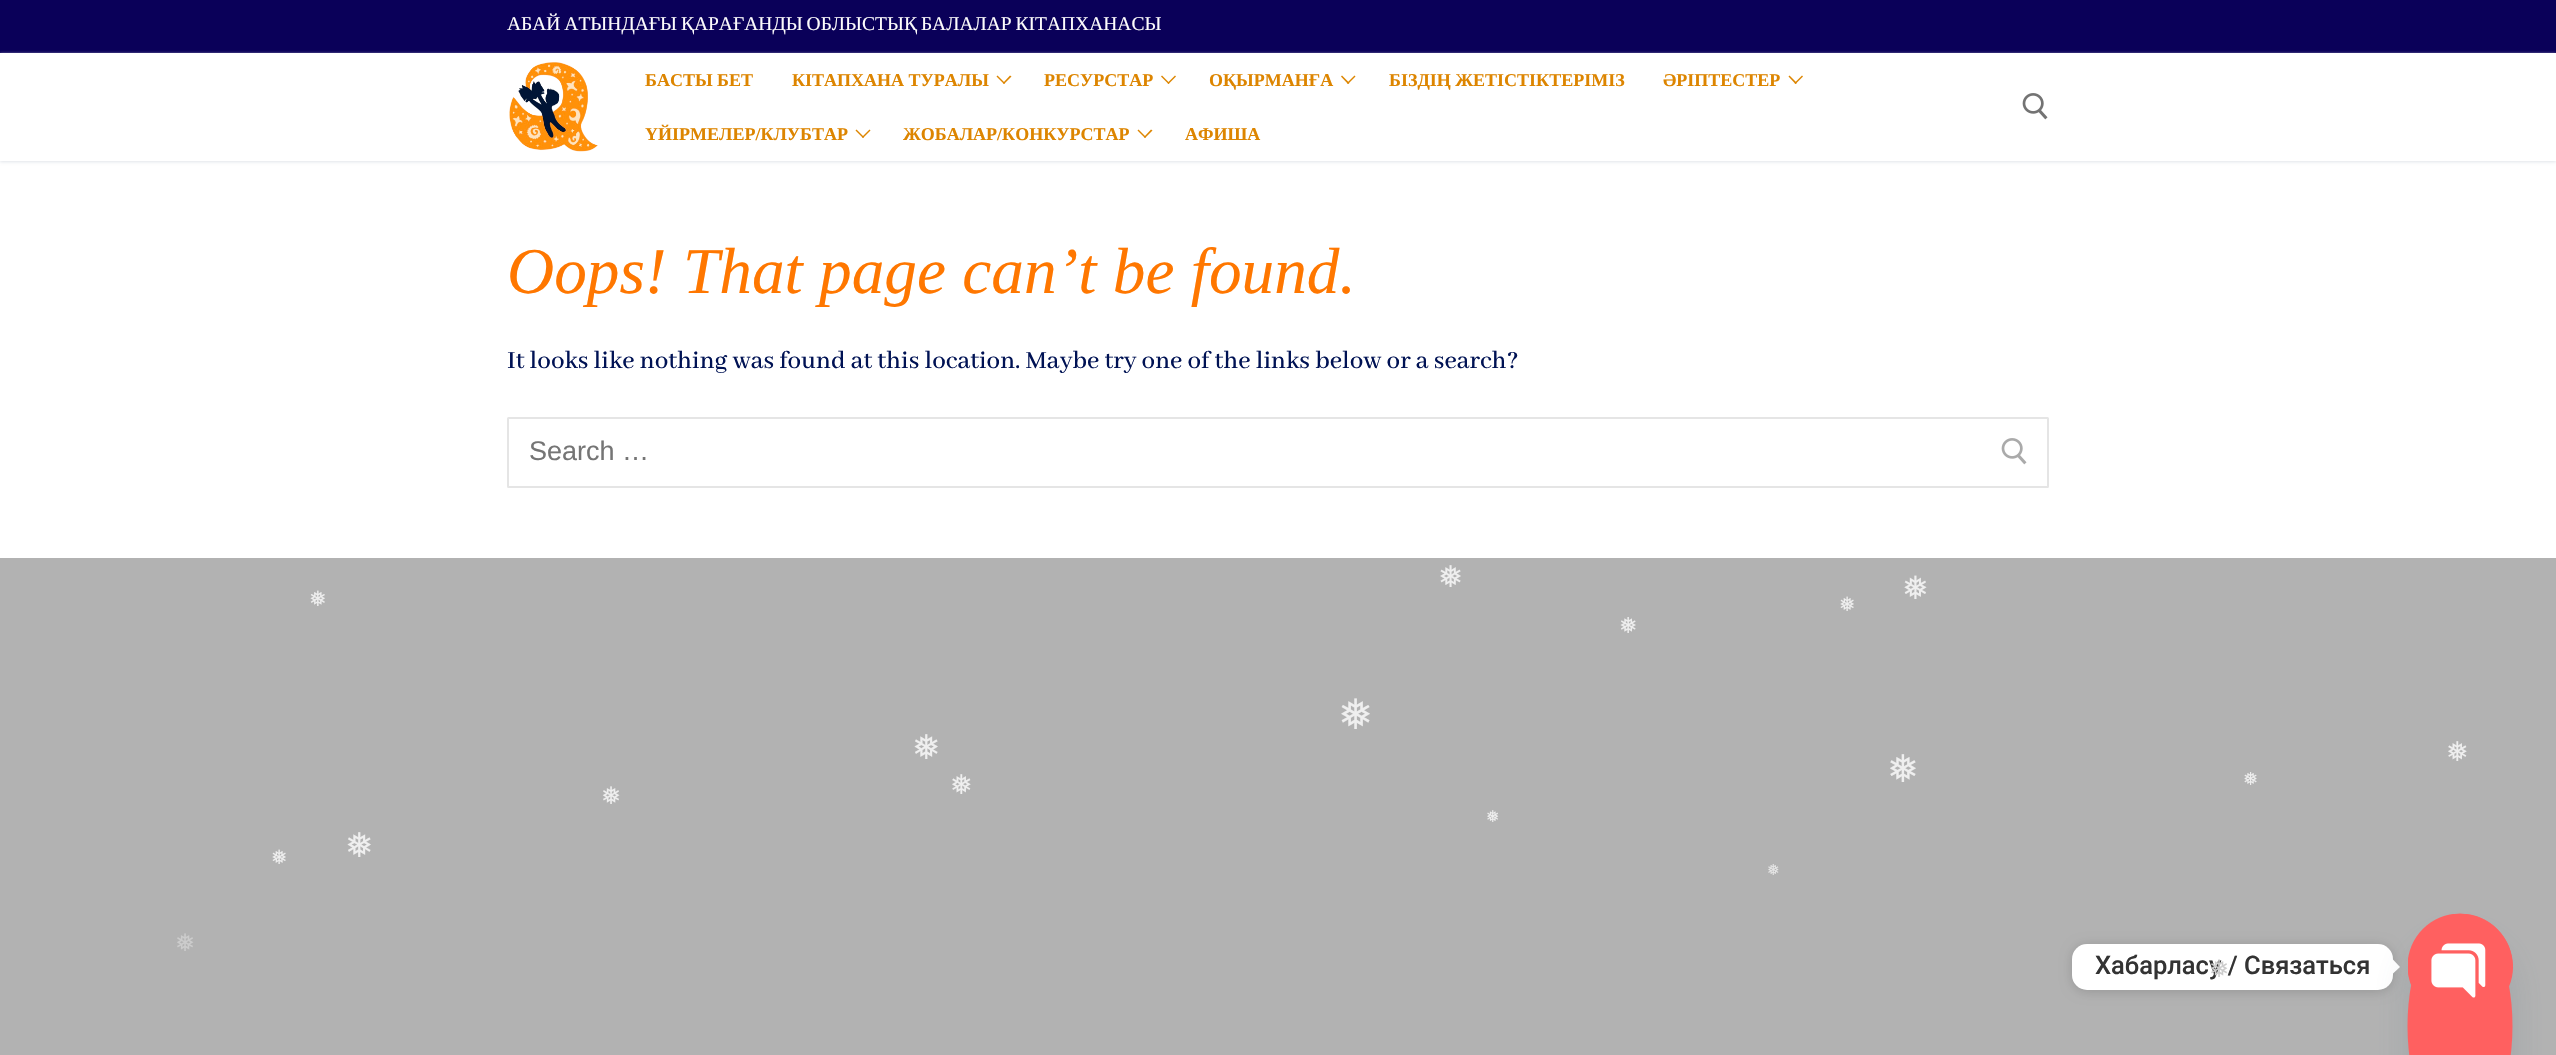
void draw(SkCanvas* canvas) {
  SkPaint paint;
  paint.setAntiAlias(true);
  auto face = [&](const char* family, int weight, float size, bool italic = false) {
    SkFontStyle style(weight, SkFontStyle::kNormal_Width,
      italic ? SkFontStyle::kItalic_Slant : SkFontStyle::kUpright_Slant);
    SkFont result(fontMgr->matchFamilyStyle(family, style), size);
    result.setSubpixel(true);
    return result;
  };
  auto writeSpaced = [&](const char* s, float x, float y, const SkFont& font, const SkPaint& ink, float letter, float word) {
    std::vector<SkGlyphID> glyphs(font.countText(s, strlen(s), SkTextEncoding::kUTF8));
    std::vector<float> xs(glyphs.size());
    font.textToGlyphs(s, strlen(s), SkTextEncoding::kUTF8, glyphs);
    font.getXPos(glyphs, xs, x);
    float extra = 0;
    for (size_t i = 0; i < glyphs.size(); i++) {
      xs[i] += extra;
      extra += letter + word * (glyphs[i] == font.unicharToGlyph(' '));
    }
    canvas->drawTextBlob(SkTextBlob::MakeFromPosHGlyphs(glyphs, xs, y, font), 0, 0, ink);
  };
  auto paste = [&](const char* path, float x, float y, float w, float h) {
    auto image = SkImages::DeferredFromEncodedData(SkData::MakeFromFileName(path));
    canvas->drawImageRect(image, SkRect::MakeXYWH(x, y, w, h), SkSamplingOptions());
  };
  auto shape = [&](const char* data, bool evenOdd = false) {
    SkPath result = *SkParsePath::FromSVGString(data);
    if (evenOdd) result.setFillType(SkPathFillType::kEvenOdd);
    return result;
  };
  canvas->clear(0xffb2b2b2);
  paint.setColor(0xff0a0059);
  canvas->drawRect(SkRect::MakeXYWH(0, 0, 2556, 53), paint);
  paint.setColor(0xffffffff);
  canvas->drawRect(SkRect::MakeXYWH(0, 161, 2556, 397), paint);
  paint.setColor(0xffe1e5ea);
  paint.setMaskFilter(SkMaskFilter::MakeBlur(kNormal_SkBlurStyle, 1.5f));
  canvas->drawRect(SkRect::MakeXYWH(0, 54, 2556, 108), paint);
  paint.setMaskFilter(nullptr);
  paint.setColor(0xffffffff);
  canvas->drawRect(SkRect::MakeXYWH(0, 53, 2556, 108), paint);
  paste("img/1.png", 509, 62, 89, 90);
  paint.setColor(0xffdd8500);
  canvas->drawPath(shape("M1004 84L996.5 76.5L997.5 75.5L1005 83Z"), paint);
  canvas->drawPath(shape("M1004 84L1003 83L1010 75.5L1011.5 76.5Z"), paint);
  canvas->drawPath(shape("M1168.5 84L1161 76.5L1162 75.5L1169.5 83Z"), paint);
  canvas->drawPath(shape("M1168.5 84L1167.5 83L1175 75.5L1176 76.5Z"), paint);
  canvas->drawPath(shape("M1348 84L1341 76.5L1342 75.5L1349.5 83Z"), paint);
  canvas->drawPath(shape("M1348 84L1347 83L1354.5 75.5L1355.5 76.5Z"), paint);
  canvas->drawPath(shape("M1795.5 84L1788.5 76.5L1789.5 75.5L1797 83Z"), paint);
  canvas->drawPath(shape("M1795.5 84L1794.5 83L1802 75.5L1803 76.5Z"), paint);
  canvas->drawPath(shape("M863 138L855.5 130.5L856.5 129.5L864 137Z"), paint);
  canvas->drawPath(shape("M863 138L862 137L869.5 129.5L870.5 130.5Z"), paint);
  canvas->drawPath(shape("M1145 138L1137.5 130.5L1138.5 129.5L1146 137Z"), paint);
  canvas->drawPath(shape("M1145 138L1144 137L1151 129.5L1152.5 130.5Z"), paint);
  paste("img/2.png", 2022, 93, 26, 27);
  paint.setStroke(true);
  paint.setStrokeWidth(2);
  paint.setColor(0xffe5e5e5);
  canvas->drawRoundRect(SkRect::MakeXYWH(508, 418, 1540, 69), 0.5f, 0.5f, paint);
  paste("img/3.png", 2001, 438, 26, 27);
  paint.setStroke(false);
  paint.setColor(0x26000000);
  paint.setMaskFilter(SkMaskFilter::MakeBlur(kNormal_SkBlurStyle, 6));
  canvas->drawRoundRect(SkRect::MakeXYWH(2072, 945, 321, 47), 15, 15, paint);
  paint.setMaskFilter(nullptr);
  paint.setColor(0xffffffff);
  canvas->drawRoundRect(SkRect::MakeXYWH(2072, 944, 321, 46), 15, 15, paint);
  canvas->drawPath(shape("M2392.5 974V959L2400 967Z"), paint);
  paint.setColor(0x2949687e);
  paint.setMaskFilter(SkMaskFilter::MakeBlur(kNormal_SkBlurStyle, 18));
  canvas->drawRoundRect(SkRect::MakeXYWH(2408, 938, 105, 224), 52.5f, 52.5f, paint);
  paint.setMaskFilter(nullptr);
  paint.setColor(0xffff6060);
  canvas->drawOval(SkRect::MakeXYWH(2407.5f, 913.5f, 105, 225), paint);
  canvas->drawCircle(2460.5f, 966.5f, 52.5f, paint);
  paste("img/4.png", 2408, 914, 105, 84);
  auto f0 = face("Liberation Serif", 400, 19.5f);
  paint.setColor(0xfffdfcfd);
  writeSpaced("АБАЙ АТЫНДАҒЫ ҚАРАҒАНДЫ ОБЛЫСТЫҚ БАЛАЛАР КІТАПХАНАСЫ", 507, 30, f0, paint, 0, -1);
  auto f1 = face("Liberation Serif", 700, 18);
  paint.setColor(0xffdd8500);
  {
    const struct { const char* s; float x, y; } items[] = {
      {"БАСТЫ БЕТ", 645, 86},
      {"КІТАПХАНА ТУРАЛЫ", 792, 86},
      {"РЕСУРСТАР", 1044, 86},
      {"ОҚЫРМАНҒА", 1209, 86},
      {"БІЗДІҢ ЖЕТІСТІКТЕРІМІЗ", 1389, 86},
      {"ӘРІПТЕСТЕР", 1663, 86},
      {"ҮЙІРМЕЛЕР/КЛУБТАР", 645, 140},
      {"ЖОБАЛАР/КОНКУРСТАР", 903, 140},
      {"АФИША", 1185, 140},
    };
    for (auto [s, x, y] : items) {
      canvas->drawString(s, x, y, f1, paint);
    }
  }
  auto f2 = face("Tinos", 400, 65.3f, true);
  paint.setColor(0xffff7700);
  canvas->drawString("Oops! That page can’t be found.", 507, 293, f2, paint);
  auto f3 = face("Abhaya Libre Medium", 500, 27);
  paint.setColor(0xff001254);
  canvas->drawString("It looks like nothing was found at this location. Maybe try one of the links below or a search?", 507, 368, f3, paint);
  auto f4 = face("Liberation Sans", 400, 27);
  paint.setColor(0xff757575);
  canvas->drawString("Search …", 529, 460, f4, paint);
  auto f5 = face("DejaVu Sans", 400, 21);
  paint.setColor(0xffefefef);
  canvas->drawString("❅", 309, 606, f5, paint);
  auto f6 = face("DejaVu Sans", 400, 30);
  canvas->drawString("❅", 1438, 587, f6, paint);
  auto f7 = face("DejaVu Sans", 400, 19.5f);
  canvas->drawString("❅", 1839, 611, f7, paint);
  auto f8 = face("DejaVu Sans", 400, 32);
  canvas->drawString("❅", 1902, 599, f8, paint);
  auto f9 = face("DejaVu Sans", 400, 22);
  canvas->drawString("❅", 1619, 633, f9, paint);
  auto f10 = face("DejaVu Sans", 400, 42);
  canvas->drawString("❅", 1338, 729, f10, paint);
  auto f11 = face("DejaVu Sans", 400, 34);
  canvas->drawString("❅", 912, 759, f11, paint);
  auto f12 = face("DejaVu Sans", 400, 27);
  canvas->drawString("❅", 2446, 761, f12, paint);
  auto f13 = face("DejaVu Sans", 400, 24);
  canvas->drawString("❅", 601, 804, f13, paint);
  canvas->drawString("❅", 950, 794, f12, paint);
  auto f14 = face("DejaVu Sans", 400, 38);
  canvas->drawString("❅", 1887, 782, f14, paint);
  auto f15 = face("DejaVu Sans", 400, 18);
  canvas->drawString("❅", 2243, 785, f15, paint);
  auto f16 = face("DejaVu Sans", 400, 16);
  canvas->drawString("❅", 1486, 822, f16, paint);
  canvas->drawString("❅", 271, 864, f7, paint);
  canvas->drawString("❅", 345, 857, f11, paint);
  auto f17 = face("DejaVu Sans", 400, 15);
  paint.setColor(0xffe6e6e6);
  canvas->drawString("❅", 1767, 875, f17, paint);
  paint.setColor(0xffcccccc);
  canvas->drawString("❅", 175, 951, f13, paint);
  auto f18 = face("Roboto", 500, 25.5f);
  paint.setColor(0xff333333);
  canvas->drawString("Хабарласу / Связаться", 2095, 974, f18, paint);
  paint.setColor(0xffcccccc);
  canvas->drawString("❅", 2209, 977, f13, paint);
}
